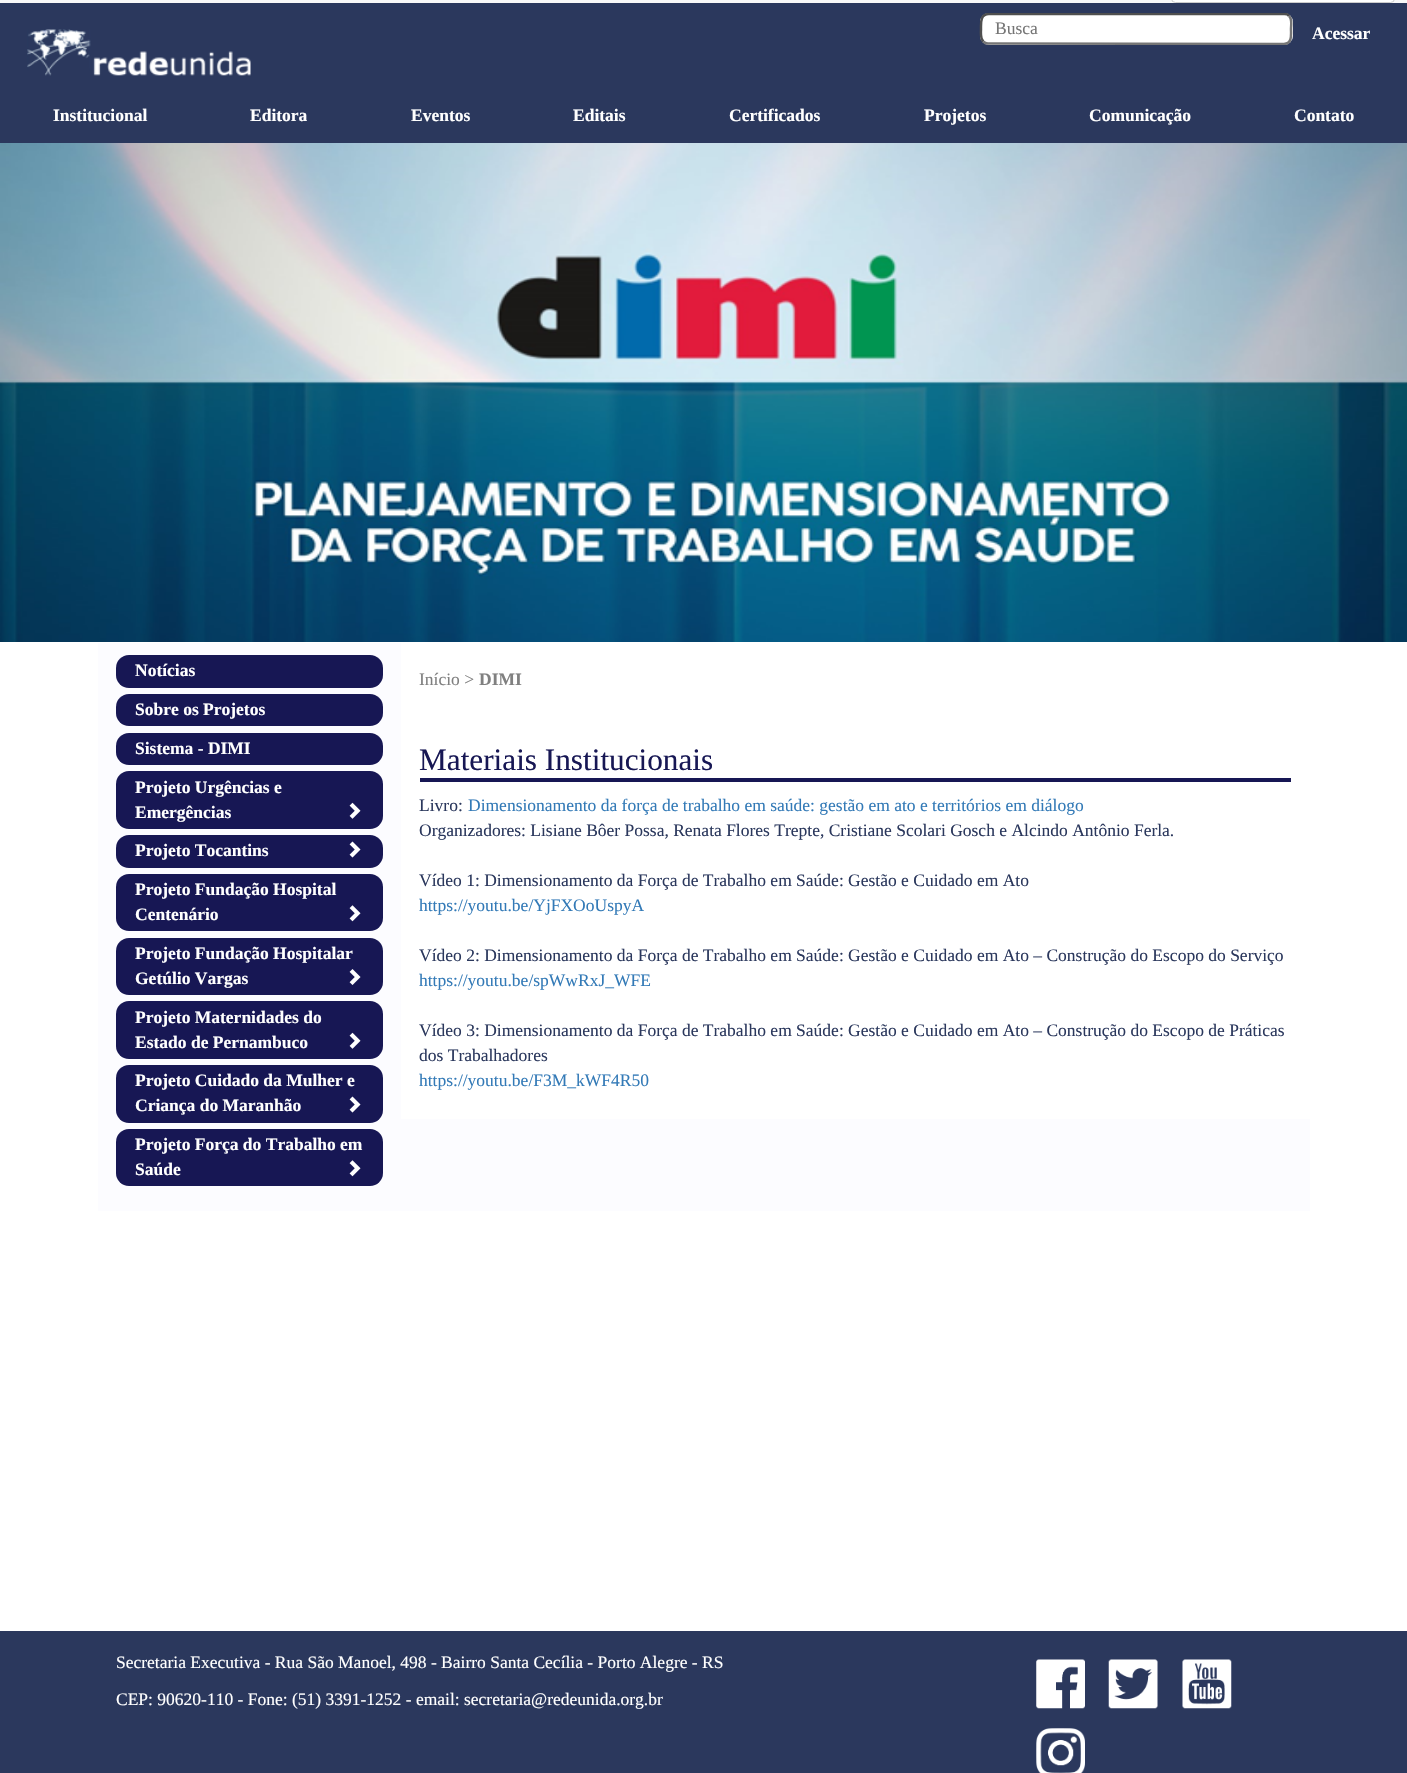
void draw(SkCanvas* canvas) {
  SkPaint paint;
  paint.setAntiAlias(true);
  auto face = [&](const char* family, int weight, float size, bool italic = false) {
    SkFontStyle style(weight, SkFontStyle::kNormal_Width,
      italic ? SkFontStyle::kItalic_Slant : SkFontStyle::kUpright_Slant);
    SkFont result(fontMgr->matchFamilyStyle(family, style), size);
    result.setSubpixel(true);
    return result;
  };
  auto paste = [&](const char* path, float x, float y, float w, float h) {
    auto image = SkImages::DeferredFromEncodedData(SkData::MakeFromFileName(path));
    canvas->drawImageRect(image, SkRect::MakeXYWH(x, y, w, h), SkSamplingOptions());
  };
  auto shape = [&](const char* data, bool evenOdd = false) {
    SkPath result = *SkParsePath::FromSVGString(data);
    if (evenOdd) result.setFillType(SkPathFillType::kEvenOdd);
    return result;
  };
  canvas->clear(0xffffffff);
  paint.setColor(0xfff8f8f8);
  canvas->drawRect(SkRect::MakeXYWH(0, 0, 1407, 3), paint);
  paint.setColor(0xffffffff);
  canvas->drawRoundRect(SkRect::MakeXYWH(1171.5f, -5.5f, 223, 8), 4.5f, 4.5f, paint);
  paint.setStroke(true);
  paint.setStrokeWidth(1);
  paint.setColor(0xffcccccc);
  canvas->drawRoundRect(SkRect::MakeXYWH(1171.5f, -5.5f, 223, 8), 4.5f, 4.5f, paint);
  paint.setStroke(false);
  paint.setColor(0xff2b385d);
  canvas->drawRect(SkRect::MakeXYWH(0, 3, 1407, 140), paint);
  paste("img/1.png", 27, 29, 224, 47);
  paint.setColor(0xffffffff);
  canvas->drawRoundRect(SkRect::MakeXYWH(980, 13, 313, 32), 9, 9, paint);
  canvas->save();
  canvas->clipRect(SkRect::MakeXYWH(961, 13, 350, 32));
  paint.setStroke(true);
  paint.setStrokeWidth(2.5f);
  paint.setColor(0xff767676);
  canvas->drawPath(shape("M1289 16C1292.5 19 1291 24.5 1291 29C1291 34.5 1292.5 43.5 1284 44L988 43.5C986.5 43.5 984.5 43 983.5 41.5"), paint);
  paint.setColor(0xff4f4f4f);
  canvas->drawPath(shape("M983.5 41.5C980 38.5 981 33 981 29C981 23 980 14 989 14H1284.5C1286 14 1288 14.5 1289 16"), paint);
  canvas->restore();
  paste("img/2.png", 0, 143, 1407, 499);
  paint.setStroke(false);
  paint.setColor(0xfffcfcff);
  canvas->drawRect(SkRect::MakeXYWH(98, 643, 1212, 568), paint);
  paint.setColor(0xff171754);
  canvas->drawRoundRect(SkRect::MakeXYWH(116, 655, 267, 33), 13, 13, paint);
  canvas->drawRoundRect(SkRect::MakeXYWH(116, 694, 267, 32), 13, 13, paint);
  canvas->drawRoundRect(SkRect::MakeXYWH(116, 733, 267, 32), 13, 13, paint);
  canvas->drawRoundRect(SkRect::MakeXYWH(116, 771, 267, 58), 13, 13, paint);
  paste("img/3.png", 349, 802, 12, 17);
  canvas->drawRoundRect(SkRect::MakeXYWH(116, 835, 267, 33), 13, 13, paint);
  paste("img/4.png", 349, 841, 12, 17);
  canvas->drawRoundRect(SkRect::MakeXYWH(116, 874, 267, 57), 13, 13, paint);
  paste("img/5.png", 349, 905, 12, 17);
  canvas->drawRoundRect(SkRect::MakeXYWH(116, 938, 267, 57), 13, 13, paint);
  paste("img/6.png", 349, 969, 12, 16);
  canvas->drawRoundRect(SkRect::MakeXYWH(116, 1001, 267, 58), 13, 13, paint);
  paste("img/3.png", 349, 1032, 12, 17);
  canvas->drawRoundRect(SkRect::MakeXYWH(116, 1065, 267, 58), 13, 13, paint);
  paste("img/4.png", 349, 1096, 12, 17);
  canvas->drawRoundRect(SkRect::MakeXYWH(116, 1129, 267, 57), 13, 13, paint);
  paste("img/5.png", 349, 1160, 12, 17);
  {
    const struct { float x, y, w, h; SkColor color; } items[] = {
      {401, 643, 909, 476, 0xffffffff},
      {420, 778, 871, 4, 0xff171754},
      {0, 1631, 1407, 142, 0xff2b385d},
    };
    for (auto [x, y, w, h, color] : items) {
      paint.setColor(color);
      canvas->drawRect(SkRect::MakeXYWH(x, y, w, h), paint);
    }
  }
  paste("img/7.png", 1036, 1659, 49, 50);
  paste("img/8.png", 1108, 1659, 50, 50);
  paste("img/9.png", 1182, 1659, 50, 50);
  paste("img/10.png", 1036, 1728, 49, 45);
  auto f0 = face("Liberation Serif", 400, 17.5f);
  paint.setColor(0xff757575);
  canvas->drawString("Busca", 995, 34, f0, paint);
  auto f1 = face("Liberation Serif", 700, 17.5f);
  paint.setColor(0xffffffff);
  {
    const struct { const char* s; float x, y; } items[] = {
      {"Acessar", 1312, 39},
      {"Institucional", 53, 121},
      {"Editora", 250, 121},
      {"Eventos", 411, 121},
      {"Editais", 573, 121},
      {"Certificados", 729, 121},
      {"Projetos", 924, 121},
      {"Comunicação", 1089, 121},
      {"Contato", 1294, 121},
      {"Notícias", 135, 676},
      {"Sobre os Projetos", 135, 715},
      {"Sistema - DIMI", 135, 754},
      {"Projeto Urgências e", 135, 793},
      {"Emergências", 135, 818},
      {"Projeto Tocantins", 135, 856},
      {"Projeto Fundação Hospital", 135, 895},
      {"Centenário", 135, 920},
      {"Projeto Fundação Hospitalar", 135, 959},
      {"Getúlio Vargas", 135, 984},
      {"Projeto Maternidades do", 135, 1023},
      {"Estado de Pernambuco", 135, 1048},
      {"Projeto Cuidado da Mulher e", 135, 1086},
      {"Criança do Maranhão", 135, 1111},
      {"Projeto Força do Trabalho em", 135, 1150},
      {"Saúde", 135, 1175},
    };
    for (auto [s, x, y] : items) {
      canvas->drawString(s, x, y, f1, paint);
    }
  }
  paint.setColor(0xff808080);
  canvas->drawString("Início >", 419, 685, f0, paint);
  canvas->drawString("DIMI", 479, 685, f1, paint);
  auto f2 = face("Liberation Serif", 400, 31.25f);
  paint.setColor(0xff171754);
  canvas->drawString("Materiais Institucionais", 419, 770, f2, paint);
  paint.setColor(0xff2b385d);
  canvas->drawString("Livro:", 419, 811, f0, paint);
  paint.setColor(0xff337ab7);
  canvas->drawString("Dimensionamento da força de trabalho em saúde: gestão em ato e territórios em diálogo", 468, 811, f0, paint);
  paint.setColor(0xff2b385d);
  canvas->drawString("Organizadores: Lisiane Bôer Possa, Renata Flores Trepte, Cristiane Scolari Gosch e Alcindo Antônio Ferla.", 419, 836, f0, paint);
  canvas->drawString("Vídeo 1: Dimensionamento da Força de Trabalho em Saúde: Gestão e Cuidado em Ato", 419, 886, f0, paint);
  paint.setColor(0xff337ab7);
  canvas->drawString("https://youtu.be/YjFXOoUspyA", 419, 911, f0, paint);
  paint.setColor(0xff2b385d);
  canvas->drawString("Vídeo 2: Dimensionamento da Força de Trabalho em Saúde: Gestão e Cuidado em Ato – Construção do Escopo do Serviço", 419, 961, f0, paint);
  paint.setColor(0xff337ab7);
  canvas->drawString("https://youtu.be/spWwRxJ_WFE", 419, 986, f0, paint);
  paint.setColor(0xff2b385d);
  canvas->drawString("Vídeo 3: Dimensionamento da Força de Trabalho em Saúde: Gestão e Cuidado em Ato – Construção do Escopo de Práticas", 419, 1036, f0, paint);
  canvas->drawString("dos Trabalhadores", 419, 1061, f0, paint);
  paint.setColor(0xff337ab7);
  canvas->drawString("https://youtu.be/F3M_kWF4R50", 419, 1086, f0, paint);
  paint.setColor(0xffffffff);
  canvas->drawString("Secretaria Executiva - Rua São Manoel, 498 - Bairro Santa Cecília - Porto Alegre - RS", 116, 1668, f0, paint);
  canvas->drawString("CEP: 90620-110 - Fone: (51) 3391-1252 - email: secretaria@redeunida.org.br", 116, 1705, f0, paint);
}
